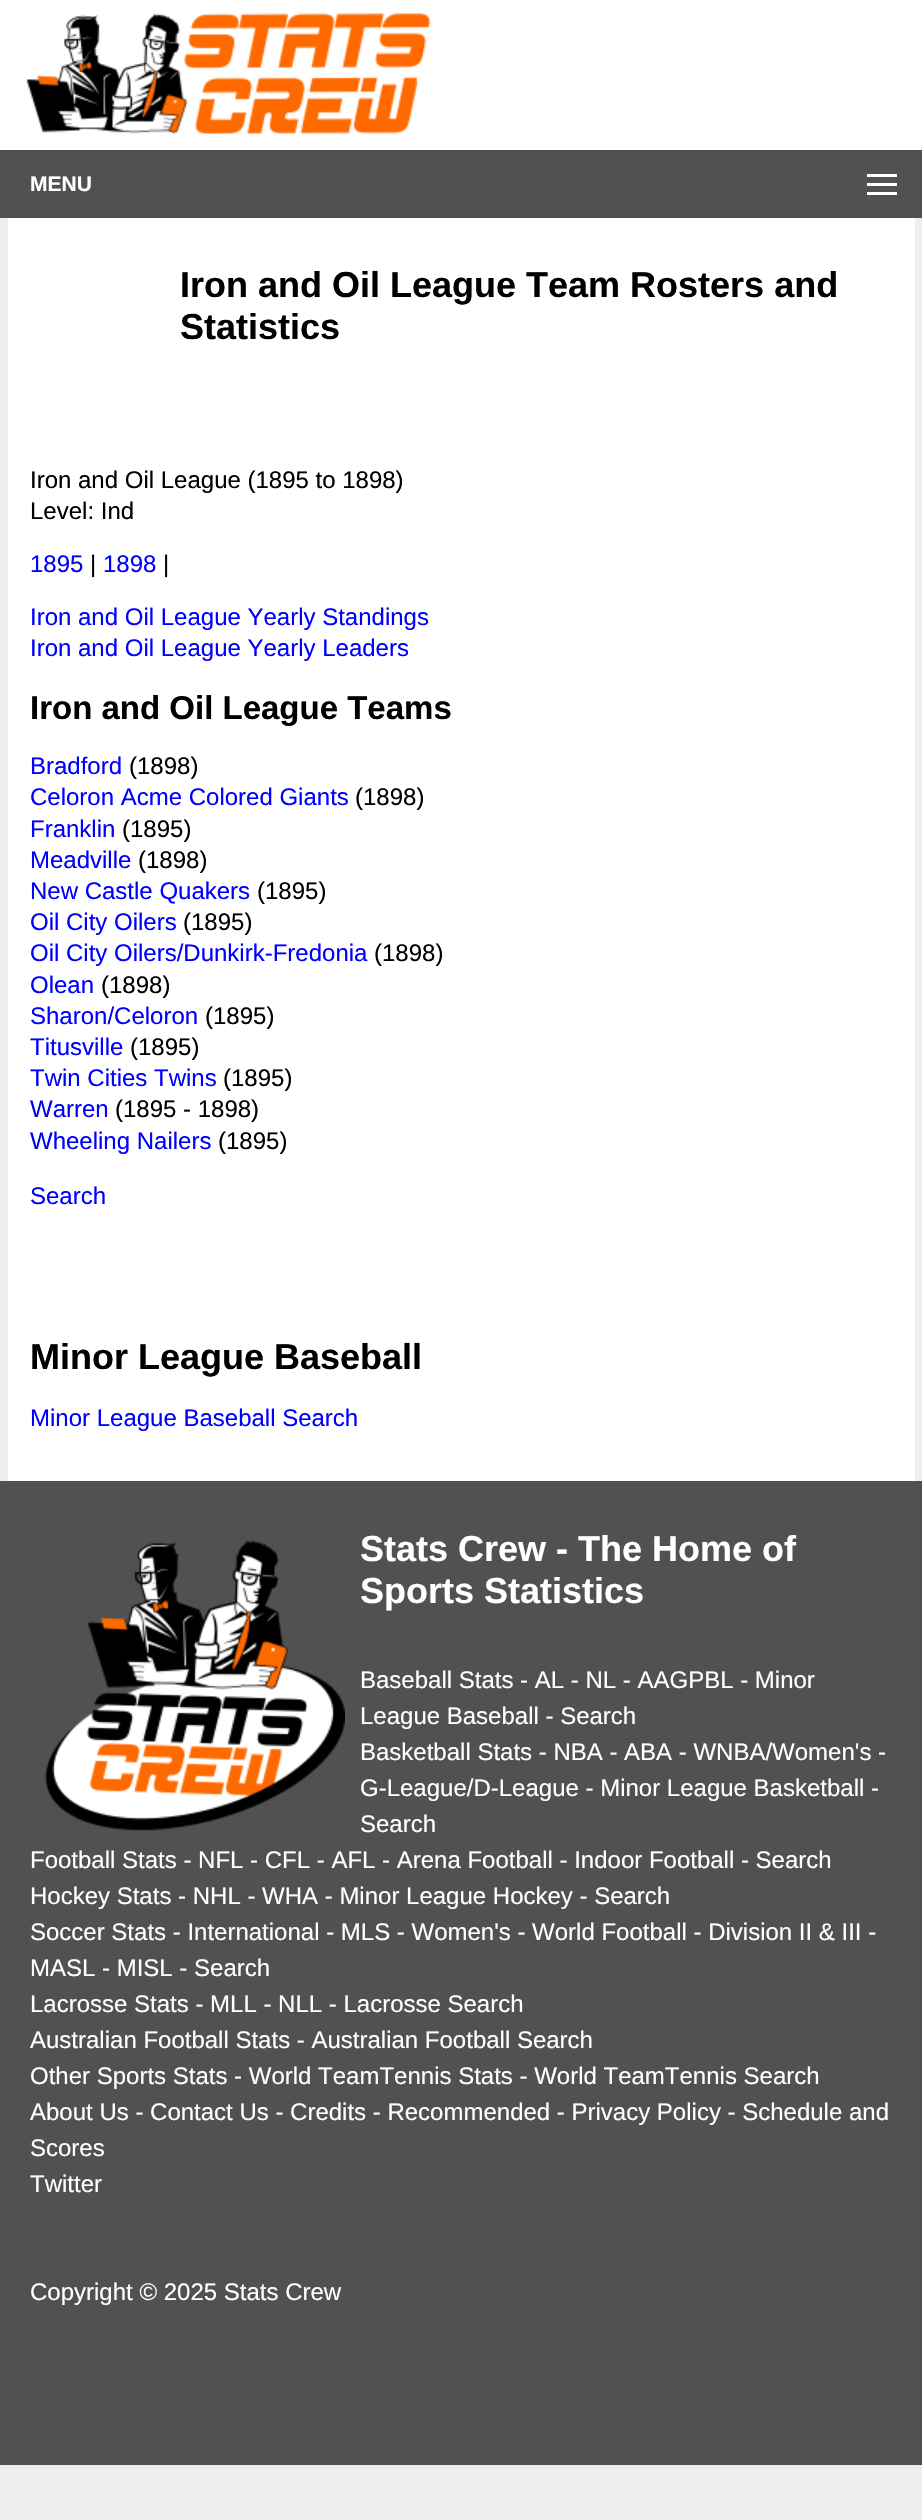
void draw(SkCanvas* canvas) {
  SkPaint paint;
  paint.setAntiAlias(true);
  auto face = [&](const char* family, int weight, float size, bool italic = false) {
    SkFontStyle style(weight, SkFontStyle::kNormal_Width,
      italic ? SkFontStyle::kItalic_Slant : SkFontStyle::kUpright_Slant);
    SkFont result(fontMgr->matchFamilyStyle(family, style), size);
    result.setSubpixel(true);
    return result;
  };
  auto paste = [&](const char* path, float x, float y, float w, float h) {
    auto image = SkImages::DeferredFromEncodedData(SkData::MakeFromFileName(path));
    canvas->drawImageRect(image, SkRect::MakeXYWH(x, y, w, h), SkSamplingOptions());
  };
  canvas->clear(0xffedefee);
  paint.setColor(0xffffffff);
  canvas->drawRect(SkRect::MakeXYWH(0, 0, 922, 150), paint);
  paste("img/1.png", 26, 13, 405, 121);
  {
    const struct { float x, y, w, h; SkColor color; } items[] = {
      {0, 150, 922, 68, 0xff515151},
      {867, 174, 30, 3, 0xffffffff},
      {867, 183, 30, 3, 0xffffffff},
      {867, 192, 30, 3, 0xffffffff},
      {8, 218, 907, 1263, 0xffffffff},
      {0, 1481, 922, 984, 0xff515151},
    };
    for (auto [x, y, w, h, color] : items) {
      paint.setColor(color);
      canvas->drawRect(SkRect::MakeXYWH(x, y, w, h), paint);
    }
  }
  paste("img/2.png", 45, 1540, 300, 291);
  auto f0 = face("Liberation Sans", 700, 21);
  paint.setColor(0xffffffff);
  canvas->drawString("MENU", 30, 191, f0, paint);
  auto f1 = face("Liberation Sans", 700, 36);
  paint.setColor(0xff000000);
  canvas->drawString("Iron and Oil League Team Rosters and", 180, 297, f1, paint);
  canvas->drawString("Statistics", 180, 339, f1, paint);
  auto f2 = face("Liberation Sans", 400, 24);
  canvas->drawString("Iron and Oil League (1895 to 1898)", 30, 488, f2, paint);
  canvas->drawString("Level: Ind", 30, 519, f2, paint);
  paint.setColor(0xff0000ff);
  canvas->drawString("1895", 30, 572, f2, paint);
  paint.setColor(0xff000000);
  canvas->drawString("|", 90, 572, f2, paint);
  paint.setColor(0xff0000ff);
  canvas->drawString("1898", 103, 572, f2, paint);
  paint.setColor(0xff000000);
  canvas->drawString("|", 163, 572, f2, paint);
  paint.setColor(0xff0000ff);
  canvas->drawString("Iron and Oil League Yearly Standings", 30, 625, f2, paint);
  canvas->drawString("Iron and Oil League Yearly Leaders", 30, 656, f2, paint);
  auto f3 = face("Liberation Sans", 700, 33);
  paint.setColor(0xff000000);
  canvas->drawString("Iron and Oil League Teams", 30, 719, f3, paint);
  paint.setColor(0xff0000ff);
  canvas->drawString("Bradford", 30, 774, f2, paint);
  paint.setColor(0xff000000);
  canvas->drawString("(1898)", 129, 774, f2, paint);
  paint.setColor(0xff0000ff);
  canvas->drawString("Celoron Acme Colored Giants", 30, 805, f2, paint);
  paint.setColor(0xff000000);
  canvas->drawString("(1898)", 355, 805, f2, paint);
  paint.setColor(0xff0000ff);
  canvas->drawString("Franklin", 30, 837, f2, paint);
  paint.setColor(0xff000000);
  canvas->drawString("(1895)", 122, 837, f2, paint);
  paint.setColor(0xff0000ff);
  canvas->drawString("Meadville", 30, 868, f2, paint);
  paint.setColor(0xff000000);
  canvas->drawString("(1898)", 138, 868, f2, paint);
  paint.setColor(0xff0000ff);
  canvas->drawString("New Castle Quakers", 30, 899, f2, paint);
  paint.setColor(0xff000000);
  canvas->drawString("(1895)", 257, 899, f2, paint);
  paint.setColor(0xff0000ff);
  canvas->drawString("Oil City Oilers", 30, 930, f2, paint);
  paint.setColor(0xff000000);
  canvas->drawString("(1895)", 183, 930, f2, paint);
  paint.setColor(0xff0000ff);
  canvas->drawString("Oil City Oilers/Dunkirk-Fredonia", 30, 961, f2, paint);
  paint.setColor(0xff000000);
  canvas->drawString("(1898)", 374, 961, f2, paint);
  paint.setColor(0xff0000ff);
  canvas->drawString("Olean", 30, 993, f2, paint);
  paint.setColor(0xff000000);
  canvas->drawString("(1898)", 101, 993, f2, paint);
  paint.setColor(0xff0000ff);
  canvas->drawString("Sharon/Celoron", 30, 1024, f2, paint);
  paint.setColor(0xff000000);
  canvas->drawString("(1895)", 205, 1024, f2, paint);
  paint.setColor(0xff0000ff);
  canvas->drawString("Titusville", 30, 1055, f2, paint);
  paint.setColor(0xff000000);
  canvas->drawString("(1895)", 130, 1055, f2, paint);
  paint.setColor(0xff0000ff);
  canvas->drawString("Twin Cities Twins", 30, 1086, f2, paint);
  paint.setColor(0xff000000);
  canvas->drawString("(1895)", 223, 1086, f2, paint);
  paint.setColor(0xff0000ff);
  canvas->drawString("Warren", 30, 1117, f2, paint);
  paint.setColor(0xff000000);
  canvas->drawString("(1895 - 1898)", 115, 1117, f2, paint);
  paint.setColor(0xff0000ff);
  canvas->drawString("Wheeling Nailers", 30, 1149, f2, paint);
  paint.setColor(0xff000000);
  canvas->drawString("(1895)", 218, 1149, f2, paint);
  paint.setColor(0xff0000ff);
  canvas->drawString("Search", 30, 1204, f2, paint);
  paint.setColor(0xff000000);
  canvas->drawString("Minor League Baseball", 30, 1369, f1, paint);
  paint.setColor(0xff0000ff);
  canvas->drawString("Minor League Baseball Search", 30, 1426, f2, paint);
  paint.setColor(0xffffffff);
  canvas->drawString("Stats Crew - The Home of", 360, 1561, f1, paint);
  canvas->drawString("Sports Statistics", 360, 1603, f1, paint);
  {
    const struct { const char* s; float x, y; } items[] = {
      {"Baseball Stats - AL - NL - AAGPBL - Minor", 360, 1688},
      {"League Baseball - Search", 360, 1724},
      {"Basketball Stats - NBA - ABA - WNBA/Women's -", 360, 1760},
      {"G-League/D-League - Minor League Basketball -", 360, 1796},
      {"Search", 360, 1832},
      {"Football Stats - NFL - CFL - AFL - Arena Football - Indoor Football - Search", 30, 1868},
      {"Hockey Stats - NHL - WHA - Minor League Hockey - Search", 30, 1904},
      {"Soccer Stats - International - MLS - Women's - World Football - Division II & III -", 30, 1940},
      {"MASL - MISL - Search", 30, 1976},
      {"Lacrosse Stats - MLL - NLL - Lacrosse Search", 30, 2012},
      {"Australian Football Stats - Australian Football Search", 30, 2048},
      {"Other Sports Stats - World TeamTennis Stats - World TeamTennis Search", 30, 2084},
      {"About Us - Contact Us - Credits - Recommended - Privacy Policy - Schedule and", 30, 2120},
      {"Scores", 30, 2156},
      {"Twitter", 30, 2192},
      {"Copyright © 2025 Stats Crew", 30, 2300},
    };
    for (auto [s, x, y] : items) {
      canvas->drawString(s, x, y, f2, paint);
    }
  }
}
